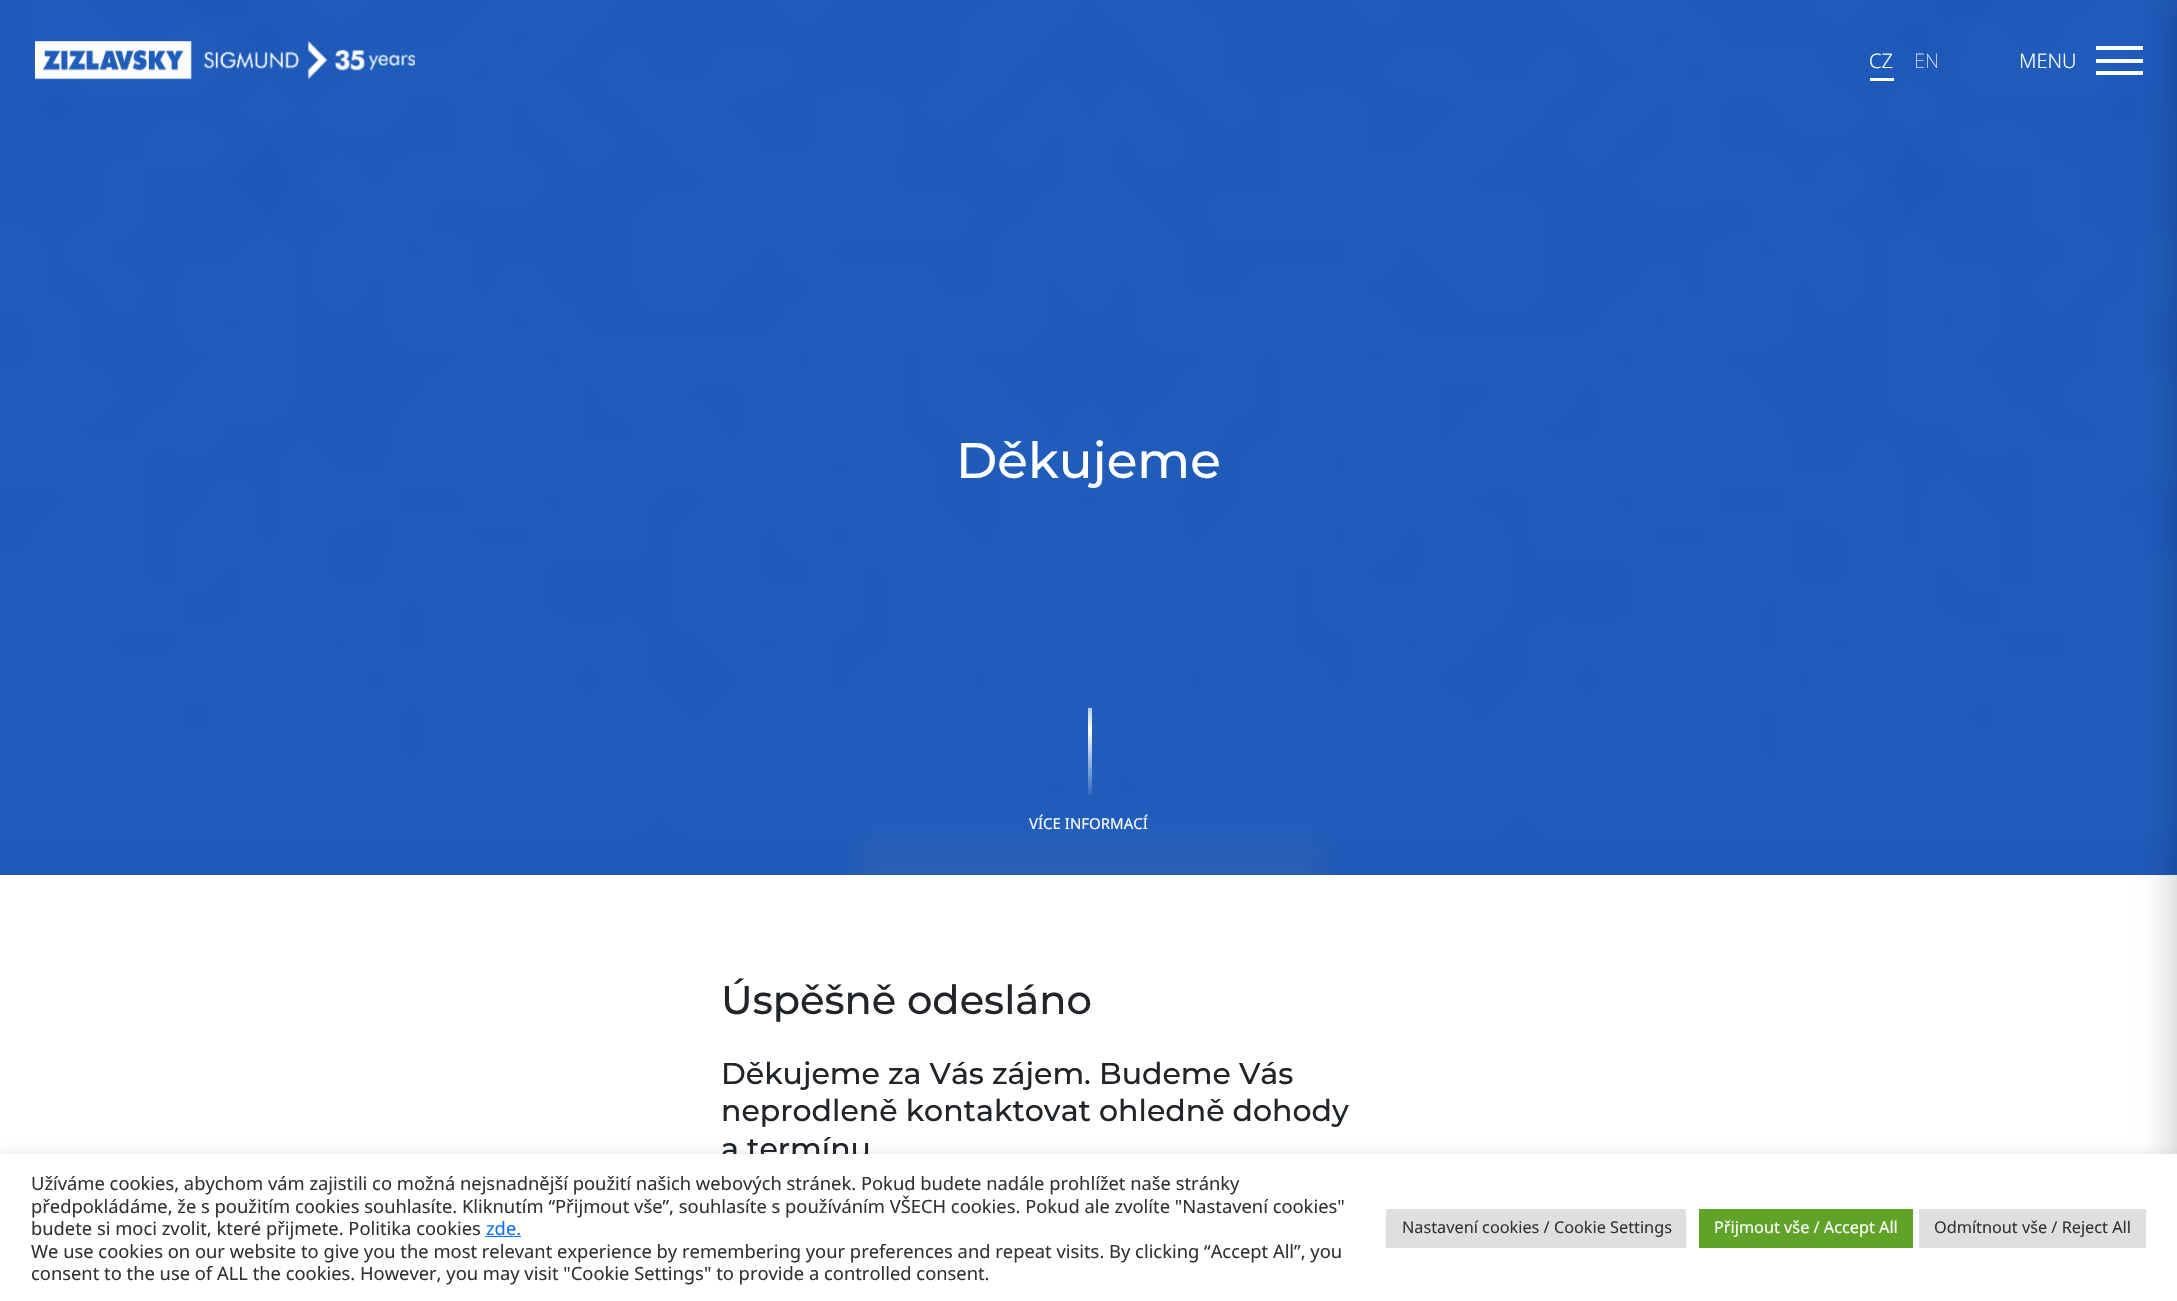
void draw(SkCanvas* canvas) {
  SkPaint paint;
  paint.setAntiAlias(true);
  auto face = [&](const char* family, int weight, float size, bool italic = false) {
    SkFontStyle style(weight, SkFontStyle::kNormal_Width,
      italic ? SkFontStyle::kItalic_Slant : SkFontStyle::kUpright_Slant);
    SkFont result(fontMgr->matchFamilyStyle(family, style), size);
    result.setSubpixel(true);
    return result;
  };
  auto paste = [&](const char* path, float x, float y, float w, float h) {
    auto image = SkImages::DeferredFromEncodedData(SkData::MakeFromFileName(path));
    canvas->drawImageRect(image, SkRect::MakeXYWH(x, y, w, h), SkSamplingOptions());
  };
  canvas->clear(0xffffffff);
  paste("img/2.png", 0, 0, 2177, 875);
  paste("img/1.png", 35, 41, 380, 39);
  {
    const struct { float x, y, w, h; SkColor color; } items[] = {
      {1870, 78, 24, 3, 0xffffffff},
      {2096, 59, 47, 4, 0xffffffff},
      {2096, 46, 47, 4, 0xffffffff},
      {2096, 71, 47, 4, 0xffffffff},
    };
    for (auto [x, y, w, h, color] : items) {
      paint.setColor(color);
      canvas->drawRect(SkRect::MakeXYWH(x, y, w, h), paint);
    }
  }
  paint.setColor(0x40000000);
  paint.setMaskFilter(SkMaskFilter::MakeBlur(kNormal_SkBlurStyle, 19));
  canvas->drawRect(SkRect::MakeXYWH(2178, 0, 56, 1301), paint);
  paint.setMaskFilter(nullptr);
  {
    const SkColor colors[] = {0xff2c66bf, 0xffffffff, 0xff2c66bf};
    const float stops[] = {0, 0.5f, 1};
    const SkPoint ends[] = {{1089, 664}, {1089, 795}};
    paint.setShader(SkGradientShader::MakeLinear(ends, colors, stops, 3, SkTileMode::kClamp));
    paint.setAlpha(255);
  }
  canvas->drawRect(SkRect::MakeXYWH(1088, 708, 4, 87), paint);
  paint.setShader(nullptr);
  paint.setColor(0x4dacabab);
  paint.setMaskFilter(SkMaskFilter::MakeBlur(kNormal_SkBlurStyle, 6));
  canvas->drawRect(SkRect::MakeXYWH(0, 1153, 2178, 147), paint);
  paint.setMaskFilter(nullptr);
  auto f0 = face("Noto Sans", 300, 20);
  paint.setColor(0xffffffff);
  canvas->drawString("CZ", 1869, 68, f0, paint);
  auto f1 = face("Noto Sans", 100, 20);
  canvas->drawString("EN", 1914, 68, f1, paint);
  canvas->drawString("MENU", 2019, 68, f0, paint);
  auto f2 = face("Montserrat", 500, 50);
  canvas->drawString("Děkujeme", 956, 478, f2, paint);
  auto f3 = face("Noto Sans", 400, 15);
  canvas->drawString("VÍCE INFORMACÍ", 1029, 829, f3, paint);
  auto f4 = face("Montserrat", 500, 40);
  paint.setColor(0xff212529);
  canvas->drawString("Úspěšně odesláno", 721, 1014, f4, paint);
  auto f5 = face("Montserrat", 500, 30);
  {
    const struct { const char* s; float x, y; } items[] = {
      {"Děkujeme za Vás zájem. Budeme Vás", 721, 1084},
      {"neprodleně kontaktovat ohledně dohody", 721, 1121},
      {"a termínu", 721, 1159},
    };
    for (auto [s, x, y] : items) {
      canvas->drawString(s, x, y, f5, paint);
    }
  }
  paint.setColor(0xffffffff);
  canvas->drawRect(SkRect::MakeXYWH(0, 1154, 2177, 147), paint);
  auto f6 = face("Noto Sans", 400, 18.33f);
  paint.setColor(0xff333333);
  {
    const struct { const char* s; float x, y; } items[] = {
      {"Užíváme cookies, abychom vám zajistili co možná nejsnadnější použití našich webových stránek. Pokud budete nadále prohlížet naše stránky", 31, 1190},
      {"předpokládáme, že s použitím cookies souhlasíte. Kliknutím “Přijmout vše”, souhlasíte s používáním VŠECH cookies. Pokud ale zvolíte \"Nastavení cookies\"", 31, 1213},
      {"budete si moci zvolit, které přijmete. Politika cookies", 31, 1235},
    };
    for (auto [s, x, y] : items) {
      canvas->drawString(s, x, y, f6, paint);
    }
  }
  paint.setColor(0xff0d6efd);
  canvas->drawString("zde.", 486, 1235, f6, paint);
  canvas->drawRect(SkRect::MakeXYWH(485, 1236, 36, 1), paint);
  paint.setColor(0xff333333);
  canvas->drawString("We use cookies on our website to give you the most relevant experience by remembering your preferences and repeat visits. By clicking “Accept All”, you", 31, 1258, f6, paint);
  canvas->drawString("consent to the use of ALL the cookies. However, you may visit \"Cookie Settings\" to provide a controlled consent.", 31, 1280, f6, paint);
  paint.setColor(0xffdedfe0);
  canvas->drawRect(SkRect::MakeXYWH(1386, 1209, 300, 39), paint);
  auto f7 = face("Noto Sans", 400, 16.25f);
  paint.setColor(0xff333333);
  canvas->drawString("Nastavení cookies / Cookie Settings", 1402, 1233, f7, paint);
  paint.setColor(0xff61a229);
  canvas->drawRect(SkRect::MakeXYWH(1699, 1209, 214, 39), paint);
  paint.setColor(0xffffffff);
  canvas->drawString("Přijmout vše / Accept All", 1714, 1233, f7, paint);
  paint.setColor(0xffdedfe0);
  canvas->drawRect(SkRect::MakeXYWH(1919, 1209, 227, 39), paint);
  paint.setColor(0xff333333);
  canvas->drawString("Odmítnout vše / Reject All", 1934, 1233, f7, paint);
}
